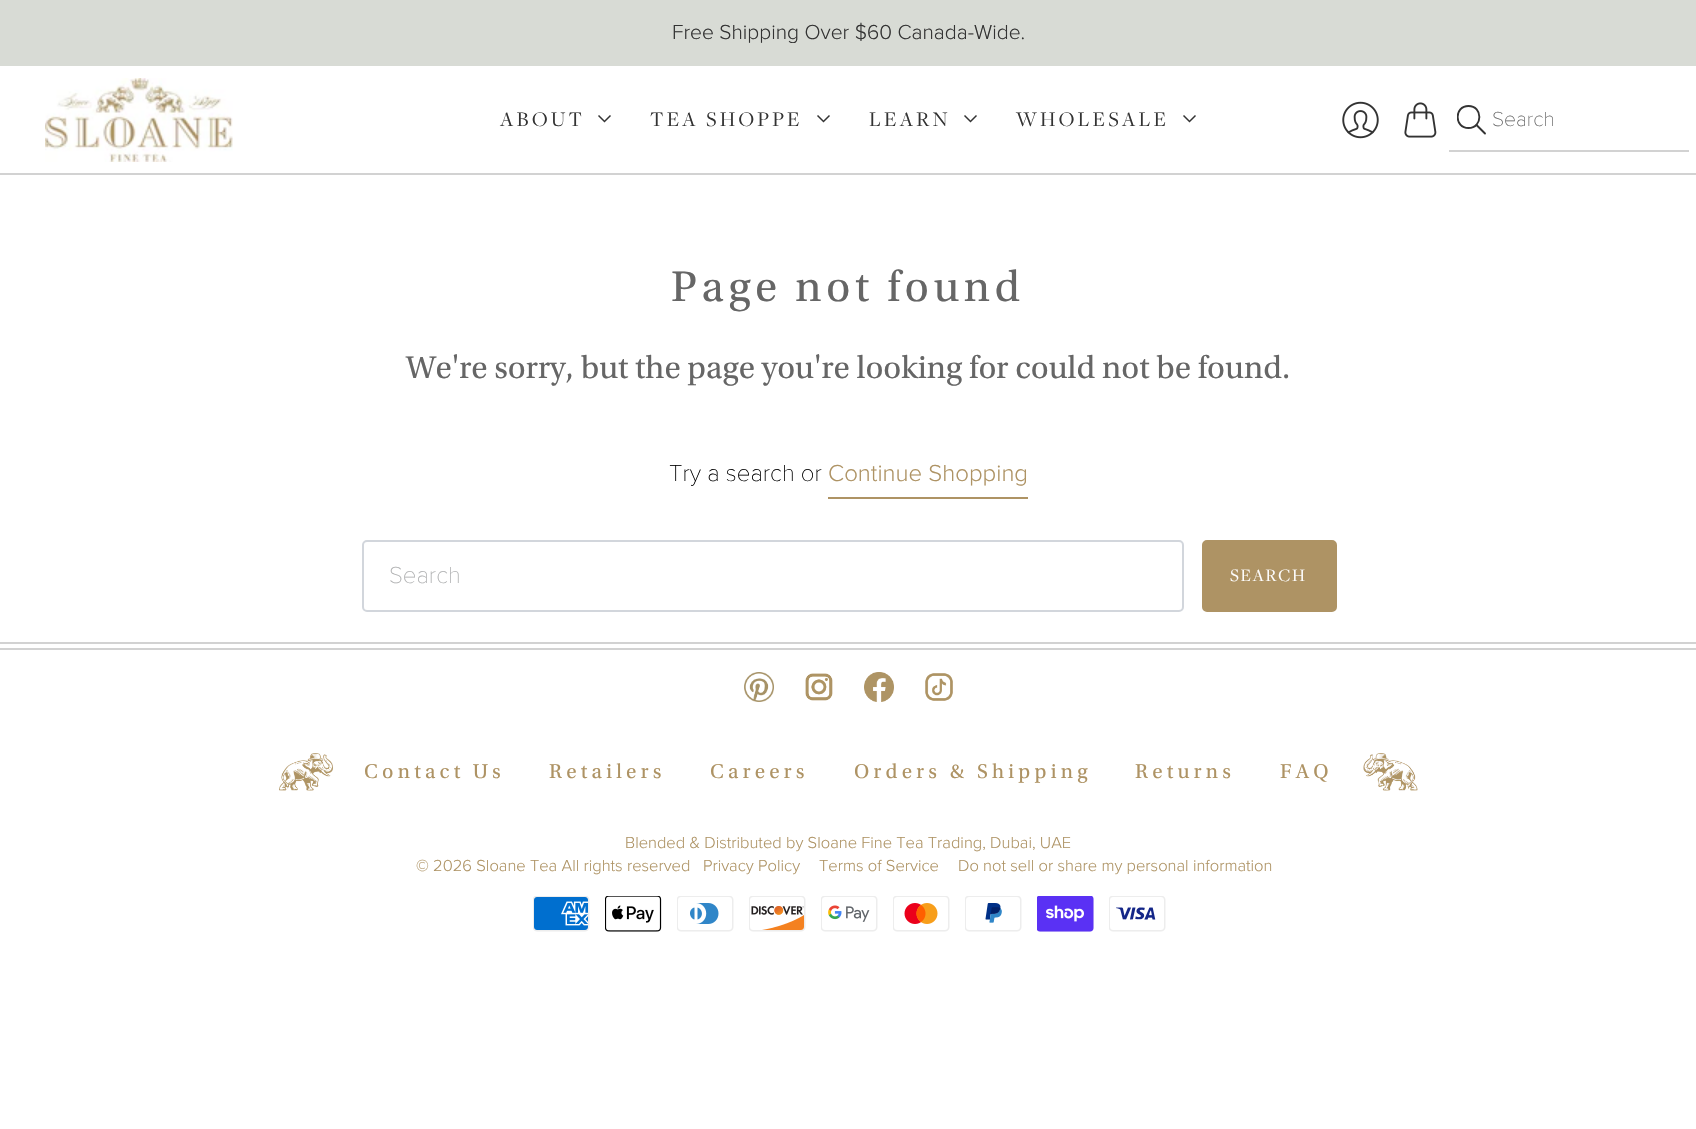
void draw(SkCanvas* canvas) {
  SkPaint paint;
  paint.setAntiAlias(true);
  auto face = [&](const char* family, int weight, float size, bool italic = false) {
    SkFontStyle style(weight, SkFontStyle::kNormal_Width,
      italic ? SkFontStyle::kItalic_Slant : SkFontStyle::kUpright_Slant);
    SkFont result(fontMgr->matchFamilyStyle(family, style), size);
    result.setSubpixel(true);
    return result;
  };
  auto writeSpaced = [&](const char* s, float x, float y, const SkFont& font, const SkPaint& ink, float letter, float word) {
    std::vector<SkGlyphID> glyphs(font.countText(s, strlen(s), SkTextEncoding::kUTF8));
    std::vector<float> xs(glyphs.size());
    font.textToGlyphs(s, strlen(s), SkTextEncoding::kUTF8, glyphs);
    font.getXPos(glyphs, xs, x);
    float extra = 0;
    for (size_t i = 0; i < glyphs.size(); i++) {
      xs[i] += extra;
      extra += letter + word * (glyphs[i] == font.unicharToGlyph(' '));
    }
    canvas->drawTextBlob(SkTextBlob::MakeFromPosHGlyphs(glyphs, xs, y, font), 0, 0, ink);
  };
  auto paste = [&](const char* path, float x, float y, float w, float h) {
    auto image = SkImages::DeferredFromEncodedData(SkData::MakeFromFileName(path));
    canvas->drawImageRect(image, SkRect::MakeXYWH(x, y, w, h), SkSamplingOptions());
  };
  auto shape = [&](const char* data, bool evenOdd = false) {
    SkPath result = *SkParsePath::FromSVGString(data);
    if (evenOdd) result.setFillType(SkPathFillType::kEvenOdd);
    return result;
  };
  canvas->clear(0xffffffff);
  paint.setColor(0xffd8dbd5);
  canvas->drawRect(SkRect::MakeXYWH(0, 0, 1696, 66), paint);
  paint.setColor(0xffd2d2d2);
  canvas->drawRect(SkRect::MakeXYWH(0, 173, 1696, 2), paint);
  paste("img/1.png", 45, 78, 188, 84);
  paint.setStroke(true);
  paint.setStrokeWidth(1.5f);
  paint.setColor(0xff333333);
  canvas->drawPath(shape("M598.5 115.5L604.5 121.5L610.5 115.5"), paint);
  canvas->drawPath(shape("M817.5 115.5L823.5 121.5L829.5 115.5"), paint);
  canvas->drawPath(shape("M964.5 115.5L970.5 121.5L976.5 115.5"), paint);
  canvas->drawPath(shape("M1183.5 115.5L1189.5 121.5L1195.5 115.5"), paint);
  paste("img/2.png", 1342, 101, 37, 38);
  paste("img/3.png", 1404, 102, 33, 36);
  canvas->save();
  canvas->clipRect(SkRect::MakeXYWH(1457, 105, 30, 30));
  paint.setStrokeWidth(1.9f);
  paint.setStrokeCap(SkPaint::kRound_Cap);
  paint.setStrokeJoin(SkPaint::kRound_Join);
  canvas->drawPath(shape("M1468.5 128C1483 128 1483 106 1468.5 106C1454 106 1454 128 1468.5 128Z"), paint);
  canvas->restore();
  canvas->drawPath(shape("M1485 133.5L1476.5 125"), paint);
  paint.setStroke(false);
  paint.setColor(0xffd2d2d2);
  canvas->drawRect(SkRect::MakeXYWH(1449, 150, 240, 2), paint);
  paint.setColor(0xffae9364);
  canvas->drawRect(SkRect::MakeXYWH(828, 497, 200, 2), paint);
  paint.setStroke(true);
  paint.setStrokeWidth(2);
  paint.setStrokeCap(SkPaint::kButt_Cap);
  paint.setStrokeJoin(SkPaint::kMiter_Join);
  paint.setColor(0xffd2d6dc);
  canvas->drawRoundRect(SkRect::MakeXYWH(363, 541, 820, 70), 4, 4, paint);
  paint.setStroke(false);
  paint.setColor(0xffae9364);
  canvas->drawRoundRect(SkRect::MakeXYWH(1203, 541, 133, 70), 4, 4, paint);
  paint.setStroke(true);
  canvas->drawRoundRect(SkRect::MakeXYWH(1203, 541, 133, 70), 4, 4, paint);
  paint.setStroke(false);
  paint.setColor(0xffd2d2d2);
  canvas->drawRect(SkRect::MakeXYWH(0, 642, 1696, 2), paint);
  canvas->drawRect(SkRect::MakeXYWH(0, 648, 1696, 2), paint);
  paste("img/4.png", 744, 672, 30, 30);
  paste("img/5.png", 805, 673, 28, 28);
  paste("img/6.png", 864, 672, 30, 30);
  paste("img/7.png", 925, 673, 28, 28);
  paste("img/8.png", 279, 753, 54, 38);
  paste("img/9.png", 1363, 753, 55, 38);
  paste("img/10.png", 533, 896, 57, 36);
  paste("img/11.png", 605, 896, 57, 36);
  paste("img/12.png", 677, 896, 57, 36);
  paste("img/13.png", 749, 896, 57, 36);
  paste("img/14.png", 821, 896, 57, 36);
  paste("img/15.png", 893, 896, 57, 36);
  paste("img/16.png", 965, 896, 57, 36);
  paste("img/17.png", 1037, 896, 57, 36);
  paste("img/18.png", 1109, 896, 57, 36);
  auto f0 = face("Proxima Nova", 300, 21);
  paint.setColor(0xff333333);
  canvas->drawString("Free Shipping Over $60 Canada-Wide.", 672, 39, f0, paint);
  auto f1 = face("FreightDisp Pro", 400, 21.5f);
  {
    const struct { const char* s; float x, y; } items[] = {
      {"ABOUT", 500, 126},
      {"TEA SHOPPE", 650, 126},
      {"LEARN", 869, 126},
      {"WHOLESALE", 1016, 126},
    };
    for (auto [s, x, y] : items) {
      writeSpaced(s, x, y, f1, paint, 3.25f, 0);
    }
  }
  auto f2 = face("Proxima Nova", 100, 21);
  paint.setColor(0xff666666);
  canvas->drawString("Search", 1492, 126, f2, paint);
  auto f3 = face("Utopia", 400, 45);
  writeSpaced("Page not found", 671, 301, f3, paint, 4.5f, 0);
  auto f4 = face("Utopia", 400, 33);
  canvas->drawString("We're sorry, but the page you're looking for could not be found.", 406, 378, f4, paint);
  auto f5 = face("Proxima Nova", 100, 24);
  paint.setColor(0xff000000);
  canvas->drawString("Try a search or", 669, 481, f5, paint);
  auto f6 = face("Proxima Nova", 300, 24);
  paint.setColor(0xffae9364);
  canvas->drawString("Continue Shopping", 828, 481, f6, paint);
  paint.setColor(0xffb0b1b2);
  canvas->drawString("Search", 389, 583, f5, paint);
  auto f7 = face("FreightDisp Pro", 400, 18);
  paint.setColor(0xffffffff);
  writeSpaced("SEARCH", 1230, 581, f7, paint, 1.75f, 0);
  auto f8 = face("Utopia", 400, 21);
  paint.setColor(0xffae9364);
  {
    const struct { const char* s; float x, y; } items[] = {
      {"Contact Us", 364, 778},
      {"Retailers", 549, 778},
      {"Careers", 710, 778},
      {"Orders & Shipping", 854, 778},
      {"Returns", 1135, 778},
      {"FAQ", 1280, 778},
    };
    for (auto [s, x, y] : items) {
      writeSpaced(s, x, y, f8, paint, 4.25f, 0);
    }
  }
  auto f9 = face("Proxima Nova", 300, 16.5f);
  {
    const struct { const char* s; float x, y; } items[] = {
      {"Blended & Distributed by Sloane Fine Tea Trading, Dubai, UAE", 625, 848},
      {"© 2026 Sloane Tea All rights reserved", 416, 871},
      {"Privacy Policy", 703, 871},
      {"Terms of Service", 819, 871},
      {"Do not sell or share my personal information", 958, 871},
    };
    for (auto [s, x, y] : items) {
      canvas->drawString(s, x, y, f9, paint);
    }
  }
}
